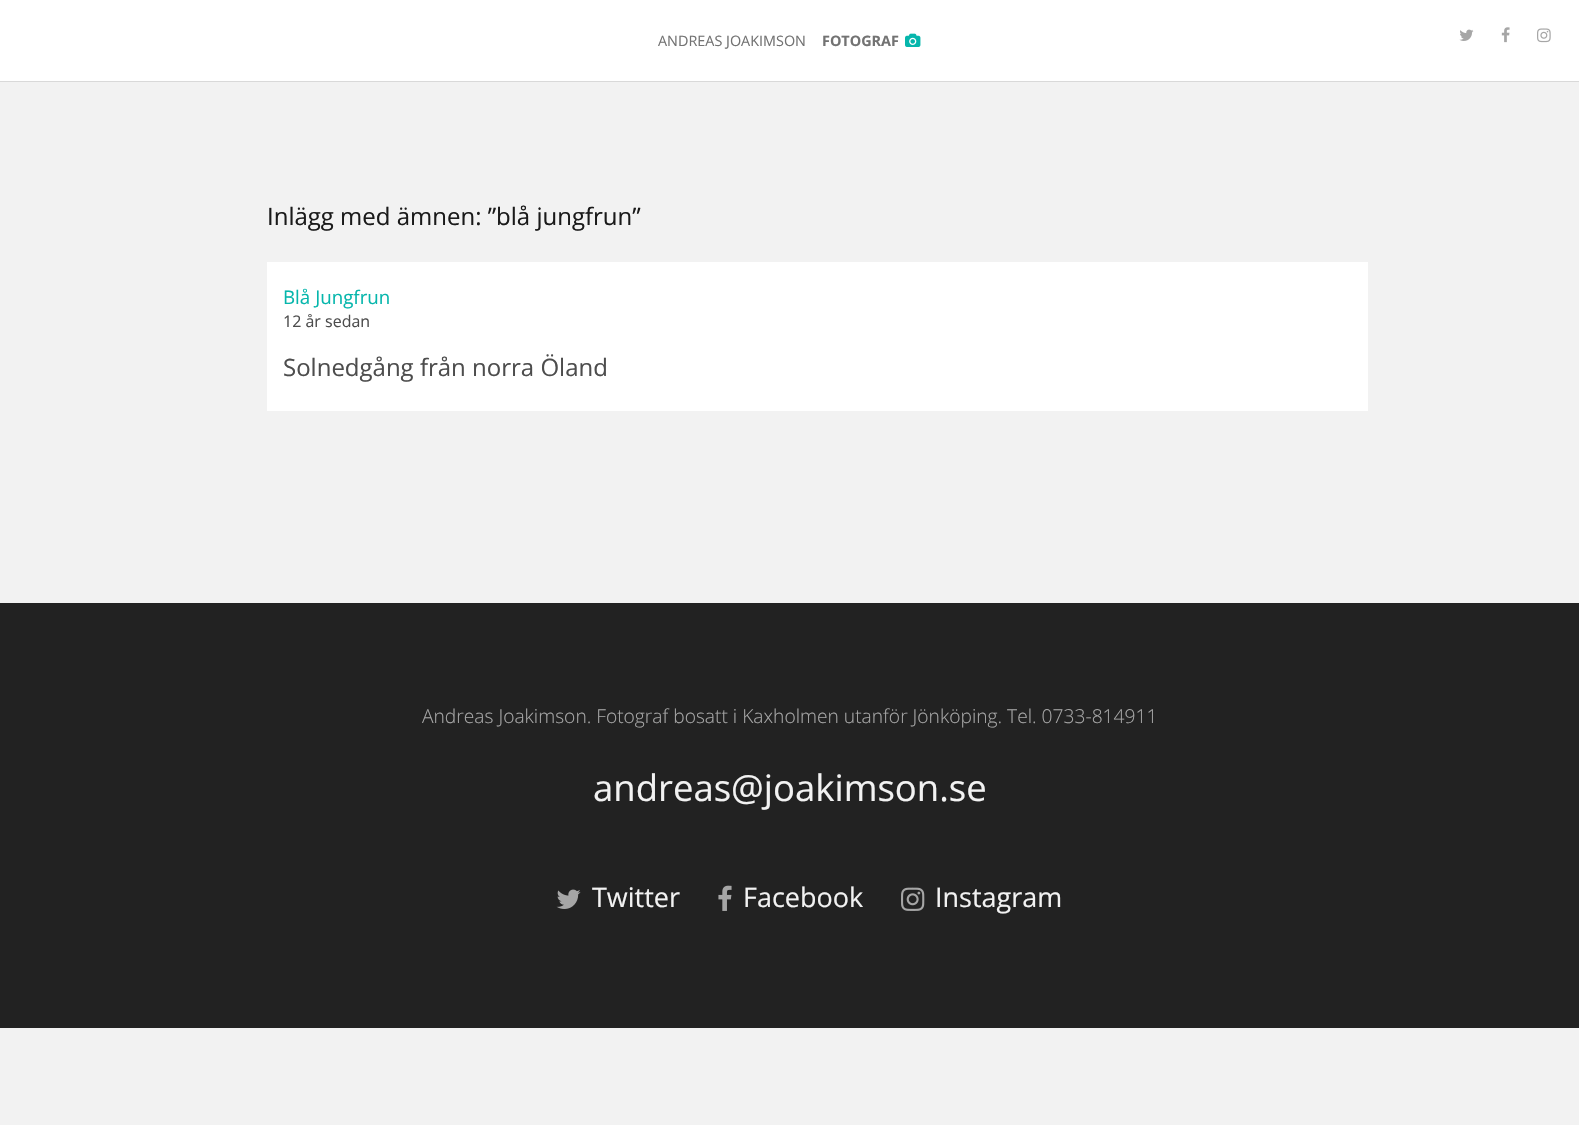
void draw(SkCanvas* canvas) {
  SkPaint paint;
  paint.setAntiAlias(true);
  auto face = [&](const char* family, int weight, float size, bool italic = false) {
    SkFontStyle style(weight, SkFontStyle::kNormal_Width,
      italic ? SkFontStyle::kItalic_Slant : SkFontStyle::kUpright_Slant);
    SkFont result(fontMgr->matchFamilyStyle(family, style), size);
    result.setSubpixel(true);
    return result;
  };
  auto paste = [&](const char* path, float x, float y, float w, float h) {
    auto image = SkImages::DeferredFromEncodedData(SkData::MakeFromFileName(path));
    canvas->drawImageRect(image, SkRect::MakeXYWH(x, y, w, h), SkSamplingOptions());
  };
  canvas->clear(0xfff2f2f2);
  paint.setColor(0xffffffff);
  canvas->drawRect(SkRect::MakeXYWH(0, 0, 1579, 81), paint);
  paint.setColor(0xffd9d9d9);
  canvas->drawRect(SkRect::MakeXYWH(0, 81, 1579, 1), paint);
  paste("img/1.png", 905, 33, 16, 14);
  paste("img/2.png", 1459, 29, 15, 12);
  paste("img/3.png", 1501, 27, 9, 16);
  paste("img/4.png", 1537, 28, 14, 15);
  paint.setColor(0xffffffff);
  canvas->drawRect(SkRect::MakeXYWH(267, 262, 1101, 149), paint);
  paint.setColor(0xff222222);
  canvas->drawRect(SkRect::MakeXYWH(0, 603, 1579, 425), paint);
  paste("img/5.png", 556, 889, 25, 20);
  paste("img/6.png", 718, 885, 14, 26);
  paste("img/7.png", 901, 887, 24, 24);
  auto f0 = face("Open Sans", 400, 14.4f);
  paint.setColor(0xff737373);
  canvas->drawString("ANDREAS JOAKIMSON", 658, 46, f0, paint);
  auto f1 = face("Open Sans", 700, 14.4f);
  canvas->drawString("FOTOGRAF", 822, 46, f1, paint);
  auto f2 = face("Open Sans", 400, 24);
  paint.setColor(0xff1a1a1a);
  canvas->drawString("Inlägg med ämnen: ”blå jungfrun”", 267, 225, f2, paint);
  auto f3 = face("Open Sans", 400, 18.75f);
  paint.setColor(0xff06b6ac);
  canvas->drawString("Blå Jungfrun", 283, 304, f3, paint);
  auto f4 = face("Open Sans", 400, 16);
  paint.setColor(0xff4d4d4d);
  canvas->drawString("12 år sedan", 283, 327, f4, paint);
  canvas->drawString("Solnedgång från norra Öland", 283, 376, f2, paint);
  auto f5 = face("Open Sans", 300, 19.2f);
  paint.setColor(0xffa6a6a6);
  canvas->drawString("Andreas Joakimson. Fotograf bosatt i Kaxholmen utanför Jönköping. Tel. 0733-814911", 422, 723, f5, paint);
  auto f6 = face("Open Sans", 400, 36.5f);
  paint.setColor(0xfff2f2f2);
  canvas->drawString("andreas@joakimson.se", 593, 801, f6, paint);
  auto f7 = face("Open Sans", 400, 27);
  {
    const struct { const char* s; float x, y; } items[] = {
      {"Twitter", 592, 907},
      {"Facebook", 743, 907},
      {"Instagram", 935, 907},
    };
    for (auto [s, x, y] : items) {
      canvas->drawString(s, x, y, f7, paint);
    }
  }
}
